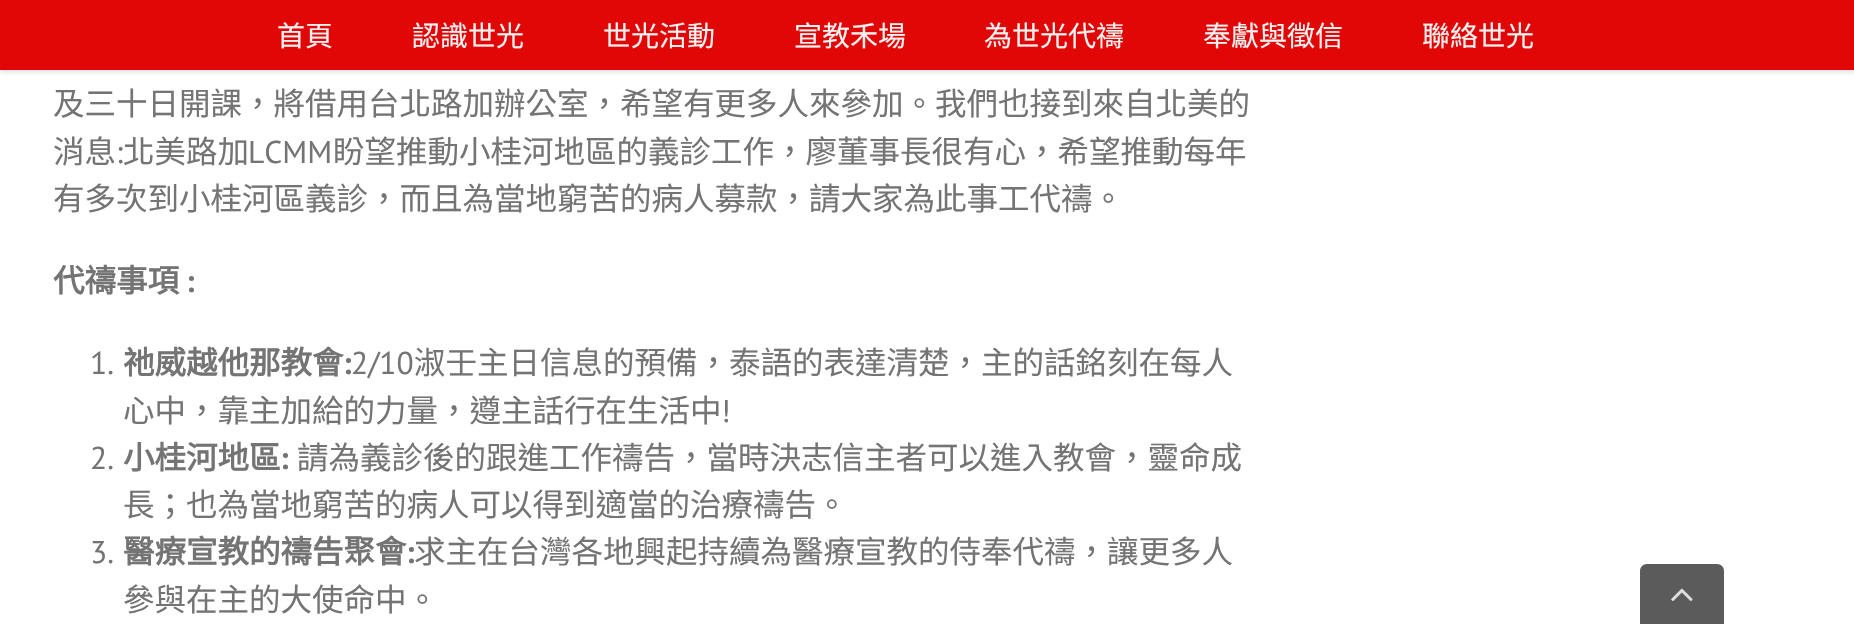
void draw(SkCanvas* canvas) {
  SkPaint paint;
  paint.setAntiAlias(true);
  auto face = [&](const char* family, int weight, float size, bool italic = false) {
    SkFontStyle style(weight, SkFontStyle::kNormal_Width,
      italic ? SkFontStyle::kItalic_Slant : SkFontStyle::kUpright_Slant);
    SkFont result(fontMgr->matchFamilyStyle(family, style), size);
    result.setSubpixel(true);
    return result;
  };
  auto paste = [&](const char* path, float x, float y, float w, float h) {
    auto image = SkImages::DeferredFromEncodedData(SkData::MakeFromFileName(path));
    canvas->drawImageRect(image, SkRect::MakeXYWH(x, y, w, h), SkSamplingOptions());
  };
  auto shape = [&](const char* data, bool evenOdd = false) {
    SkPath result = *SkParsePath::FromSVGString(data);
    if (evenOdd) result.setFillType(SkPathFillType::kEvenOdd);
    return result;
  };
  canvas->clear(0xffffffff);
  paint.setColor(0x1f000000);
  paint.setMaskFilter(SkMaskFilter::MakeBlur(kNormal_SkBlurStyle, 2.5f));
  canvas->drawRect(SkRect::MakeXYWH(0, 2, 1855, 70), paint);
  paint.setMaskFilter(nullptr);
  paint.setColor(0xffe10707);
  canvas->drawRect(SkRect::MakeXYWH(0, 0, 1854, 70), paint);
  paint.setColor(0xff5b5b5b);
  canvas->drawPath(shape("M1647 564H1717C1721 564 1724 567 1724 571V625H1640V571C1640 567 1643 564 1647 564Z"), paint);
  paste("img/1.png", 1671, 588, 22, 13);
  auto f0 = face("Noto Sans CJK TC", 400, 28);
  paint.setColor(0xfff2f2f2);
  {
    const struct { const char* s; float x, y; } items[] = {
      {"首頁", 277, 46},
      {"認識世光", 412, 46},
      {"世光活動", 603, 46},
      {"宣教禾場", 794, 46},
      {"為世光代禱", 984, 46},
      {"奉獻與徵信", 1203, 46},
      {"聯絡世光", 1422, 46},
    };
    for (auto [s, x, y] : items) {
      canvas->drawString(s, x, y, f0, paint);
    }
  }
  auto f1 = face("Noto Sans CJK TC", 400, 31.5f);
  paint.setColor(0xff747474);
  canvas->drawString("及三十日開課，將借用台北路加辦公室，希望有更多人來參加。我們也接到來自北美的", 53, 115, f1, paint);
  canvas->drawString("消息 北美路加", 53, 163, f1, paint);
  auto f2 = face("PT Sans", 400, 31.5f);
  canvas->drawString("LCMM", 248, 163, f2, paint);
  canvas->drawString("盼望推動小桂河地區的義診工作，廖董事長很有心，希望推動每年", 333, 163, f1, paint);
  canvas->drawString(":", 116, 163, f2, paint);
  canvas->drawString("有多次到小桂河區義診，而且為當地窮苦的病人募款，請大家為此事工代禱。", 53, 210, f1, paint);
  auto f3 = face("Noto Sans CJK TC", 700, 31.5f);
  canvas->drawString("代禱事項", 53, 292, f3, paint);
  auto f4 = face("PT Sans", 700, 31.5f);
  canvas->drawString(":", 186, 292, f4, paint);
  canvas->drawString("1.", 90, 374, f2, paint);
  canvas->drawString("祂威越他那教會", 123, 374, f3, paint);
  canvas->drawString(":", 343, 374, f4, paint);
  canvas->drawString("2/10", 351, 374, f2, paint);
  canvas->drawString("淑壬主日信息的預備，泰語的表達清楚，主的話銘刻在每人", 414, 374, f1, paint);
  canvas->drawString("心中，靠主加給的力量，遵主話行在生活中", 123, 422, f1, paint);
  canvas->drawString("!", 721, 422, f2, paint);
  canvas->drawString("2.", 90, 469, f2, paint);
  canvas->drawString("小桂河地區", 123, 469, f3, paint);
  canvas->drawString(":", 280, 469, f4, paint);
  canvas->drawString("請為義診後的跟進工作禱告，當時決志信主者可以進入教會，靈命成", 297, 469, f1, paint);
  canvas->drawString("長；也為當地窮苦的病人可以得到適當的治療禱告。", 123, 516, f1, paint);
  canvas->drawString("3.", 90, 563, f2, paint);
  canvas->drawString("醫療宣教的禱告聚會", 123, 563, f3, paint);
  canvas->drawString(":", 406, 563, f4, paint);
  canvas->drawString("求主在台灣各地興起持續為醫療宣教的侍奉代禱，讓更多人", 414, 563, f1, paint);
  canvas->drawString("參與在主的大使命中。", 123, 611, f1, paint);
}
